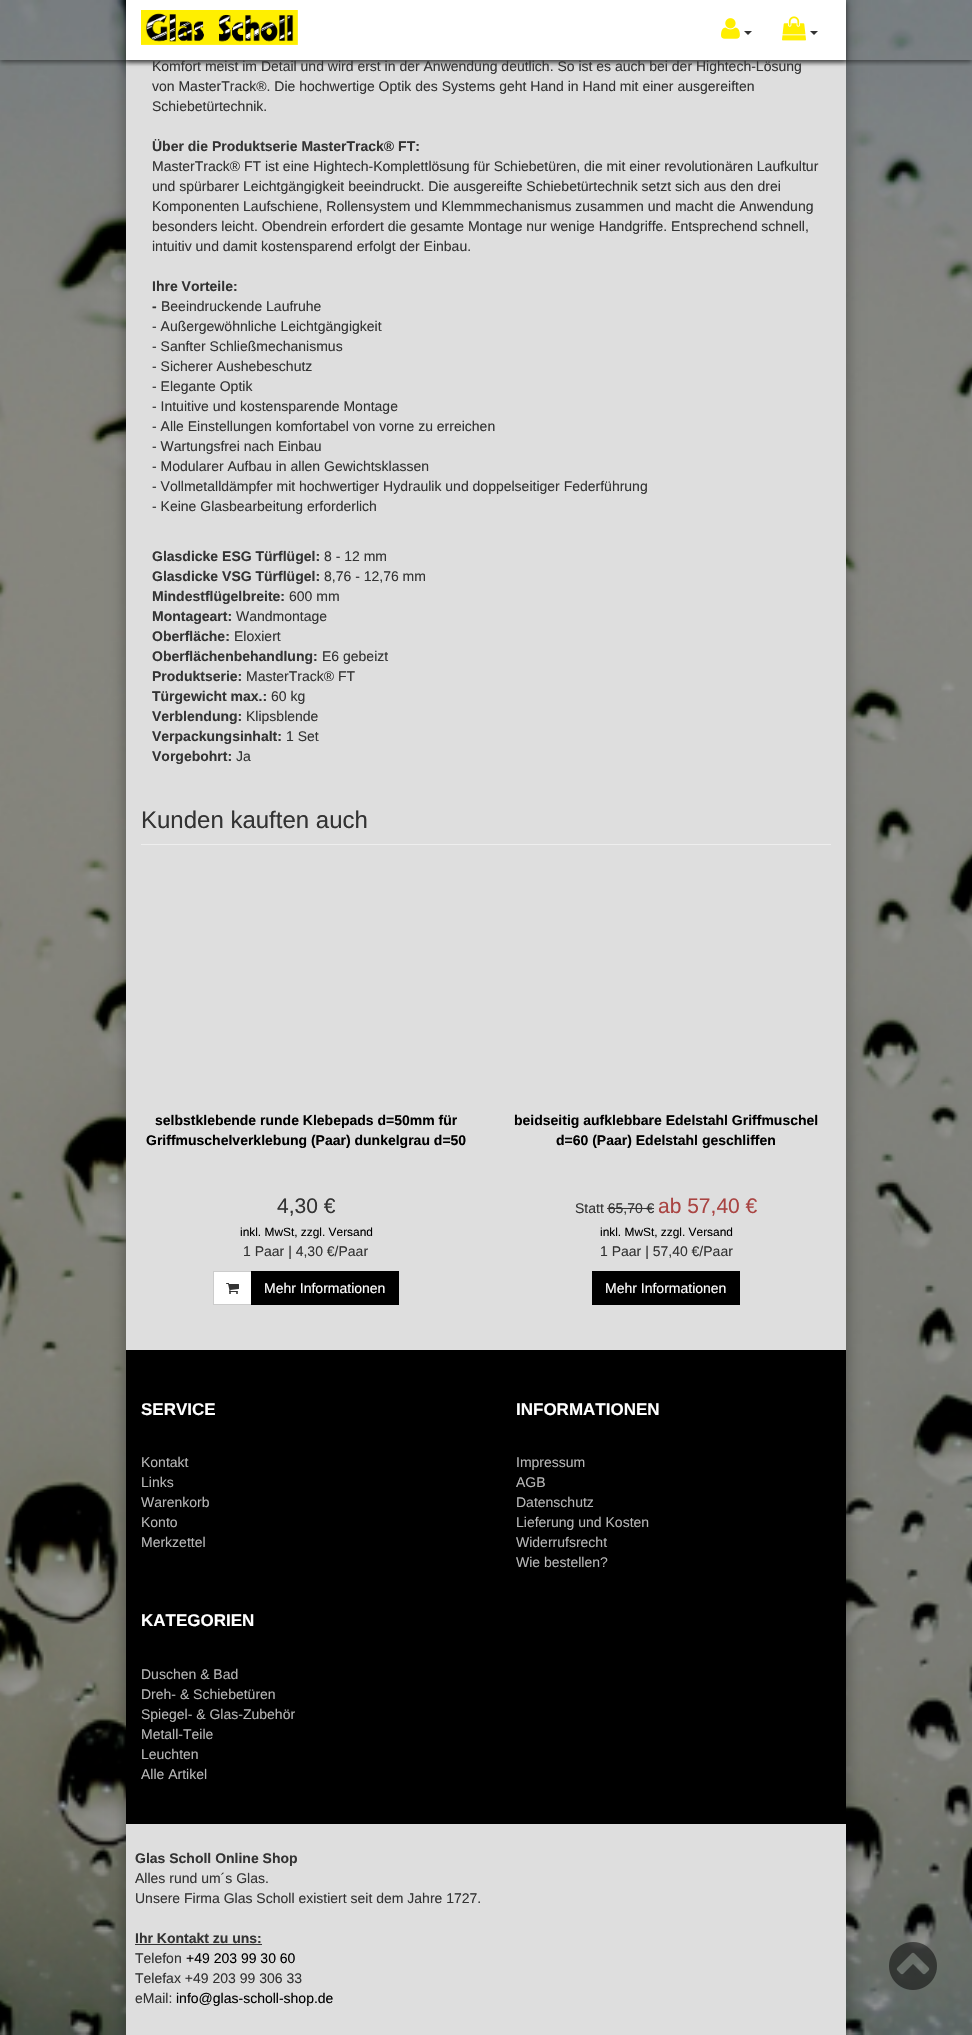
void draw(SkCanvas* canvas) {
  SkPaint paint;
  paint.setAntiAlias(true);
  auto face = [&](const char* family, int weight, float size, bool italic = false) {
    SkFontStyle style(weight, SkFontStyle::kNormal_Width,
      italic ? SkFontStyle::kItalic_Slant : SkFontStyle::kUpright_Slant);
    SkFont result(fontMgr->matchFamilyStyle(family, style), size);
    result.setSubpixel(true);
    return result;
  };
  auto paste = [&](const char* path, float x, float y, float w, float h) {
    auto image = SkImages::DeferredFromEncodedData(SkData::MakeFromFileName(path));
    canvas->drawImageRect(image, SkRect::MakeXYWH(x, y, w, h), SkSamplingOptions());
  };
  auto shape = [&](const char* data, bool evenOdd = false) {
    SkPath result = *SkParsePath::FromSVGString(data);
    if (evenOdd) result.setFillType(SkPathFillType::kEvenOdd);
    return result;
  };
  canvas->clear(0xffffffff);
  paste("img/1.png", 0, 0, 972, 2035);
  paint.setColor(0x59000000);
  paint.setMaskFilter(SkMaskFilter::MakeBlur(kNormal_SkBlurStyle, 7.5f));
  canvas->drawRect(SkRect::MakeXYWH(126, -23, 720, 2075), paint);
  paint.setMaskFilter(nullptr);
  paint.setColor(0xffdedede);
  canvas->drawRect(SkRect::MakeXYWH(126, 60, 720, 1290), paint);
  canvas->save();
  canvas->clipRect(SkRect::MakeXYWH(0, 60, 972, 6));
  paint.setColor(0x80000000);
  paint.setMaskFilter(SkMaskFilter::MakeBlur(kNormal_SkBlurStyle, 2.5f));
  canvas->drawRect(SkRect::MakeXYWH(0, 2, 972, 60), paint);
  paint.setMaskFilter(nullptr);
  canvas->restore();
  paint.setMaskFilter(SkMaskFilter::MakeBlur(kNormal_SkBlurStyle, 2.5f));
  canvas->drawRect(SkRect::MakeXYWH(126, 2, 720, 60), paint);
  paint.setMaskFilter(nullptr);
  paint.setColor(0xffffffff);
  canvas->drawRect(SkRect::MakeXYWH(126, 0, 720, 60), paint);
  paste("img/2.png", 141, 10, 157, 35);
  paste("img/3.png", 721, 18, 19, 21);
  paint.setColor(0xff333333);
  canvas->drawPath(shape("M744 31H752L748 35Z"), paint);
  paste("img/4.png", 782, 16, 24, 25);
  canvas->drawPath(shape("M810 31H818L814 35Z"), paint);
  paint.setColor(0xffeeeeee);
  canvas->drawRect(SkRect::MakeXYWH(141, 844, 690, 1), paint);
  paint.setColor(0xffffffff);
  canvas->drawRect(SkRect::MakeXYWH(213.5f, 1271.5f, 38, 33), paint);
  paint.setStroke(true);
  paint.setStrokeWidth(1);
  paint.setColor(0xffcccccc);
  canvas->drawRect(SkRect::MakeXYWH(213.5f, 1271.5f, 38, 33), paint);
  paste("img/5.png", 226, 1283, 13, 11);
  paint.setStroke(false);
  {
    const struct { float x, y, w, h; SkColor color; } items[] = {
      {251, 1271, 148, 34, 0xff000000},
      {607, 1208, 47, 1, 0xff333333},
      {592, 1271, 148, 34, 0xff000000},
      {126, 1350, 720, 474, 0xff000000},
      {126, 1824, 720, 211, 0xffdedede},
      {135, 1944, 127, 1, 0xff333333},
    };
    for (auto [x, y, w, h, color] : items) {
      paint.setColor(color);
      canvas->drawRect(SkRect::MakeXYWH(x, y, w, h), paint);
    }
  }
  paste("img/6.png", 889, 1942, 48, 48);
  auto f0 = face("Liberation Sans", 400, 14);
  {
    const struct { const char* s; float x, y; } items[] = {
      {"Komfort meist im Detail und wird erst in der Anwendung deutlich. So ist es auch bei der Hightech-Lösung", 152, 71},
      {"von MasterTrack®. Die hochwertige Optik des Systems geht Hand in Hand mit einer ausgereiften", 152, 91},
      {"Schiebetürtechnik.", 152, 111},
    };
    for (auto [s, x, y] : items) {
      canvas->drawString(s, x, y, f0, paint);
    }
  }
  auto f1 = face("Liberation Sans", 700, 14);
  canvas->drawString("Über die Produktserie MasterTrack® FT:", 152, 151, f1, paint);
  {
    const struct { const char* s; float x, y; } items[] = {
      {"MasterTrack® FT ist eine Hightech-Komplettlösung für Schiebetüren, die mit einer revolutionären Laufkultur", 152, 171},
      {"und spürbarer Leichtgängigkeit beeindruckt. Die ausgereifte Schiebetürtechnik setzt sich aus den drei", 152, 191},
      {"Komponenten Laufschiene, Rollensystem und Klemmmechanismus zusammen und macht die Anwendung", 152, 211},
      {"besonders leicht. Obendrein erfordert die gesamte Montage nur wenige Handgriffe. Entsprechend schnell,", 152, 231},
      {"intuitiv und damit kostensparend erfolgt der Einbau.", 152, 251},
    };
    for (auto [s, x, y] : items) {
      canvas->drawString(s, x, y, f0, paint);
    }
  }
  canvas->drawString("Ihre Vorteile:", 152, 291, f1, paint);
  canvas->drawString("-", 152, 311, f1, paint);
  {
    const struct { const char* s; float x, y; } items[] = {
      {"Beeindruckende Laufruhe", 161, 311},
      {"- Außergewöhnliche Leichtgängigkeit", 152, 331},
      {"- Sanfter Schließmechanismus", 152, 351},
      {"- Sicherer Aushebeschutz", 152, 371},
      {"- Elegante Optik", 152, 391},
      {"- Intuitive und kostensparende Montage", 152, 411},
      {"- Alle Einstellungen komfortabel von vorne zu erreichen", 152, 431},
      {"- Wartungsfrei nach Einbau", 152, 451},
      {"- Modularer Aufbau in allen Gewichtsklassen", 152, 471},
      {"- Vollmetalldämpfer mit hochwertiger Hydraulik und doppelseitiger Federführung", 152, 491},
      {"- Keine Glasbearbeitung erforderlich", 152, 511},
    };
    for (auto [s, x, y] : items) {
      canvas->drawString(s, x, y, f0, paint);
    }
  }
  canvas->drawString("Glasdicke ESG Türflügel:", 152, 561, f1, paint);
  canvas->drawString("8 - 12 mm", 324, 561, f0, paint);
  canvas->drawString("Glasdicke VSG Türflügel:", 152, 581, f1, paint);
  canvas->drawString("8,76 - 12,76 mm", 324, 581, f0, paint);
  canvas->drawString("Mindestflügelbreite:", 152, 601, f1, paint);
  canvas->drawString("600 mm", 289, 601, f0, paint);
  canvas->drawString("Montageart:", 152, 621, f1, paint);
  canvas->drawString("Wandmontage", 236, 621, f0, paint);
  canvas->drawString("Oberfläche:", 152, 641, f1, paint);
  canvas->drawString("Eloxiert", 234, 641, f0, paint);
  canvas->drawString("Oberflächenbehandlung:", 152, 661, f1, paint);
  canvas->drawString("E6 gebeizt", 322, 661, f0, paint);
  canvas->drawString("Produktserie:", 152, 681, f1, paint);
  canvas->drawString("MasterTrack® FT", 246, 681, f0, paint);
  canvas->drawString("Türgewicht max.:", 152, 701, f1, paint);
  canvas->drawString("60 kg", 271, 701, f0, paint);
  canvas->drawString("Verblendung:", 152, 721, f1, paint);
  canvas->drawString("Klipsblende", 246, 721, f0, paint);
  canvas->drawString("Verpackungsinhalt:", 152, 741, f1, paint);
  canvas->drawString("1 Set", 286, 741, f0, paint);
  canvas->drawString("Vorgebohrt:", 152, 761, f1, paint);
  canvas->drawString("Ja", 236, 761, f0, paint);
  auto f2 = face("Liberation Sans", 400, 24);
  canvas->drawString("Kunden kauften auch", 141, 828, f2, paint);
  paint.setColor(0xff000000);
  canvas->drawString("selbstklebende runde Klebepads d=50mm für", 155, 1125, f1, paint);
  canvas->drawString("Griffmuschelverklebung (Paar) dunkelgrau d=50", 146, 1145, f1, paint);
  auto f3 = face("Liberation Sans", 400, 21);
  paint.setColor(0xff333333);
  canvas->drawString("4,30 €", 277, 1213, f3, paint);
  auto f4 = face("Liberation Sans", 400, 11.9f);
  paint.setColor(0xff000000);
  canvas->drawString("inkl. MwSt, zzgl. Versand", 240, 1236, f4, paint);
  paint.setColor(0xff333333);
  canvas->drawString("1 Paar | 4,30 €/Paar", 243, 1256, f0, paint);
  paint.setColor(0xffffffff);
  canvas->drawString("Mehr Informationen", 264, 1293, f0, paint);
  paint.setColor(0xff000000);
  canvas->drawString("beidseitig aufklebbare Edelstahl Griffmuschel", 514, 1125, f1, paint);
  canvas->drawString("d=60 (Paar) Edelstahl geschliffen", 556, 1145, f1, paint);
  paint.setColor(0xff333333);
  canvas->drawString("Statt 65,70 €", 575, 1213, f0, paint);
  paint.setColor(0xffa94442);
  canvas->drawString("ab 57,40 €", 658, 1213, f3, paint);
  paint.setColor(0xff000000);
  canvas->drawString("inkl. MwSt, zzgl. Versand", 600, 1236, f4, paint);
  paint.setColor(0xff333333);
  canvas->drawString("1 Paar | 57,40 €/Paar", 600, 1256, f0, paint);
  paint.setColor(0xffffffff);
  canvas->drawString("Mehr Informationen", 605, 1293, f0, paint);
  auto f5 = face("Liberation Sans", 700, 17);
  canvas->drawString("SERVICE", 141, 1415, f5, paint);
  paint.setColor(0xffb6b6b6);
  {
    const struct { const char* s; float x, y; } items[] = {
      {"Kontakt", 141, 1467},
      {"Links", 141, 1487},
      {"Warenkorb", 141, 1507},
      {"Konto", 141, 1527},
      {"Merkzettel", 141, 1547},
    };
    for (auto [s, x, y] : items) {
      canvas->drawString(s, x, y, f0, paint);
    }
  }
  paint.setColor(0xffffffff);
  canvas->drawString("INFORMATIONEN", 516, 1415, f5, paint);
  paint.setColor(0xffb6b6b6);
  {
    const struct { const char* s; float x, y; } items[] = {
      {"Impressum", 516, 1467},
      {"AGB", 516, 1487},
      {"Datenschutz", 516, 1507},
      {"Lieferung und Kosten", 516, 1527},
      {"Widerrufsrecht", 516, 1547},
      {"Wie bestellen?", 516, 1567},
    };
    for (auto [s, x, y] : items) {
      canvas->drawString(s, x, y, f0, paint);
    }
  }
  paint.setColor(0xffffffff);
  canvas->drawString("KATEGORIEN", 141, 1626, f5, paint);
  paint.setColor(0xffb6b6b6);
  {
    const struct { const char* s; float x, y; } items[] = {
      {"Duschen & Bad", 141, 1679},
      {"Dreh- & Schiebetüren", 141, 1699},
      {"Spiegel- & Glas-Zubehör", 141, 1719},
      {"Metall-Teile", 141, 1739},
      {"Leuchten", 141, 1759},
      {"Alle Artikel", 141, 1779},
    };
    for (auto [s, x, y] : items) {
      canvas->drawString(s, x, y, f0, paint);
    }
  }
  paint.setColor(0xff333333);
  canvas->drawString("Glas Scholl Online Shop", 135, 1863, f1, paint);
  canvas->drawString("Alles rund um´s Glas.", 135, 1883, f0, paint);
  canvas->drawString("Unsere Firma Glas Scholl existiert seit dem Jahre 1727.", 135, 1903, f0, paint);
  canvas->drawString("Ihr Kontakt zu uns:", 135, 1943, f1, paint);
  canvas->drawString("Telefon", 135, 1963, f0, paint);
  paint.setColor(0xff000000);
  canvas->drawString("+49 203 99 30 60", 186, 1963, f0, paint);
  paint.setColor(0xff333333);
  canvas->drawString("Telefax +49 203 99 306 33", 135, 1983, f0, paint);
  canvas->drawString("eMail:", 135, 2003, f0, paint);
  paint.setColor(0xff000000);
  canvas->drawString("info@glas-scholl-shop.de", 176, 2003, f0, paint);
}
